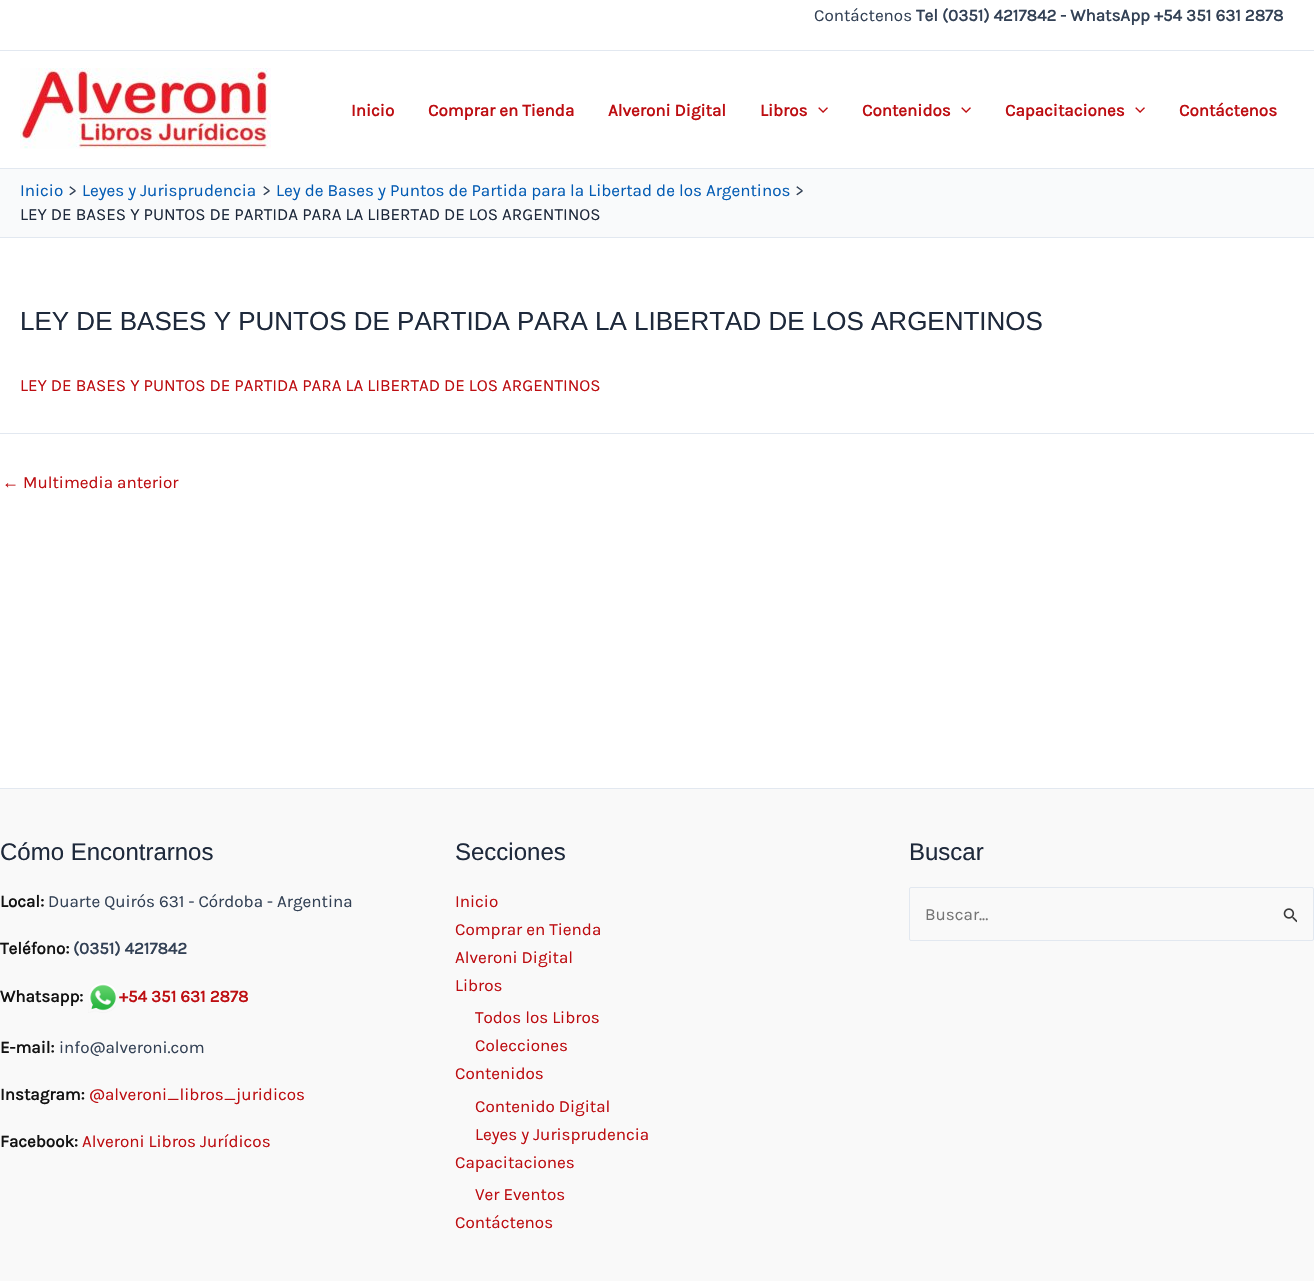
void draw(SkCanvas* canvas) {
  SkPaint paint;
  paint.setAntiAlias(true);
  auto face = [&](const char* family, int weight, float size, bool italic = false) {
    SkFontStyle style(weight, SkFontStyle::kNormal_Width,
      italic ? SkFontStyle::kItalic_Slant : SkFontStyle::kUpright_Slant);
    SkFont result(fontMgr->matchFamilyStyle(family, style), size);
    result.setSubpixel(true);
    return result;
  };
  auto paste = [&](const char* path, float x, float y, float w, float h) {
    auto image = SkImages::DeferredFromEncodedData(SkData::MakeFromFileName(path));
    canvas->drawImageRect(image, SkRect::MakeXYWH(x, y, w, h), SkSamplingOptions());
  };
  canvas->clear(0xffffffff);
  paint.setColor(0xffe2e8f0);
  canvas->drawRect(SkRect::MakeXYWH(0, 50, 1314, 1), paint);
  canvas->drawRect(SkRect::MakeXYWH(0, 168, 1314, 1), paint);
  paste("img/1.png", 20, 68, 251, 81);
  paste("img/2.png", 818, 107, 10, 6);
  paste("img/2.png", 961, 107, 10, 6);
  paste("img/2.png", 1135, 107, 10, 6);
  {
    const struct { float x, y, w, h; SkColor color; } items[] = {
      {0, 169, 1314, 68, 0xfff9fafb},
      {0, 237, 1314, 1, 0xffe2e8f0},
      {0, 433, 1314, 1, 0xffe2e8f0},
      {0, 789, 1314, 492, 0xfff9f9f9},
      {0, 788, 1314, 1, 0xffe2e8f0},
    };
    for (auto [x, y, w, h, color] : items) {
      paint.setColor(color);
      canvas->drawRect(SkRect::MakeXYWH(x, y, w, h), paint);
    }
  }
  paste("img/3.png", 88, 983, 28, 30);
  paint.setStroke(true);
  paint.setStrokeWidth(1);
  canvas->drawRoundRect(SkRect::MakeXYWH(909.5f, 887.5f, 404, 53), 1.5f, 1.5f, paint);
  paste("img/4.png", 1283, 908, 14, 15);
  auto f0 = face("Karla", 400, 17);
  paint.setStroke(false);
  paint.setColor(0xff334155);
  canvas->drawString("Contáctenos", 814, 21, f0, paint);
  auto f1 = face("Karla", 700, 17);
  canvas->drawString("Tel (0351) 4217842 - WhatsApp +54 351 631 2878", 916, 21, f1, paint);
  paint.setColor(0xffbd0e12);
  {
    const struct { const char* s; float x, y; } items[] = {
      {"Inicio", 351, 116},
      {"Comprar en Tienda", 428, 116},
      {"Alveroni Digital", 608, 116},
      {"Libros", 760, 116},
      {"Contenidos", 862, 116},
      {"Capacitaciones", 1005, 116},
      {"Contáctenos", 1179, 116},
    };
    for (auto [s, x, y] : items) {
      canvas->drawString(s, x, y, f1, paint);
    }
  }
  paint.setColor(0xff045cb4);
  canvas->drawString("Inicio", 20, 196, f0, paint);
  paint.setColor(0xff334155);
  canvas->drawString(">", 68, 196, f0, paint);
  paint.setColor(0xff045cb4);
  canvas->drawString("Leyes y Jurisprudencia", 82, 196, f0, paint);
  paint.setColor(0xff334155);
  canvas->drawString(">", 262, 196, f0, paint);
  paint.setColor(0xff045cb4);
  canvas->drawString("Ley de Bases y Puntos de Partida para la Libertad de los Argentinos", 276, 196, f0, paint);
  paint.setColor(0xff334155);
  canvas->drawString(">", 795, 196, f0, paint);
  paint.setColor(0xff1e293b);
  canvas->drawString("LEY DE BASES Y PUNTOS DE PARTIDA PARA LA LIBERTAD DE LOS ARGENTINOS", 20, 220, f0, paint);
  auto f2 = face("Liberation Sans", 400, 26);
  canvas->drawString("LEY DE BASES Y PUNTOS DE PARTIDA PARA LA LIBERTAD DE LOS ARGENTINOS", 20, 330, f2, paint);
  paint.setColor(0xffbd0e12);
  canvas->drawString("LEY DE BASES Y PUNTOS DE PARTIDA PARA LA LIBERTAD DE LOS ARGENTINOS", 20, 391, f0, paint);
  auto f3 = face("Liberation Sans", 400, 17);
  canvas->drawString("←", 2, 488, f3, paint);
  canvas->drawString("Multimedia anterior", 23, 488, f0, paint);
  auto f4 = face("Liberation Sans", 400, 24);
  paint.setColor(0xff1e293b);
  canvas->drawString("Cómo Encontrarnos", 0, 860, f4, paint);
  paint.setColor(0xff121212);
  canvas->drawString("Local:", 0, 907, f1, paint);
  paint.setColor(0xff334155);
  canvas->drawString("Duarte Quirós 631 - Córdoba - Argentina", 48, 907, f0, paint);
  paint.setColor(0xff121212);
  canvas->drawString("Teléfono:", 0, 954, f1, paint);
  paint.setColor(0xff334155);
  canvas->drawString("(0351) 4217842", 73, 954, f1, paint);
  paint.setColor(0xff121212);
  canvas->drawString("Whatsapp:", 0, 1002, f1, paint);
  paint.setColor(0xffbd0e12);
  canvas->drawString("+54 351 631 2878", 119, 1002, f1, paint);
  paint.setColor(0xff121212);
  canvas->drawString("E-mail:", 0, 1053, f1, paint);
  paint.setColor(0xff334155);
  canvas->drawString("info@alveroni.com", 59, 1053, f0, paint);
  paint.setColor(0xff121212);
  canvas->drawString("Instagram:", 0, 1100, f1, paint);
  paint.setColor(0xffbd0e12);
  canvas->drawString("@alveroni_libros_juridicos", 89, 1100, f0, paint);
  paint.setColor(0xff121212);
  canvas->drawString("Facebook:", 0, 1147, f1, paint);
  paint.setColor(0xffbd0e12);
  canvas->drawString("Alveroni Libros Jurídicos", 82, 1147, f0, paint);
  paint.setColor(0xff1e293b);
  canvas->drawString("Secciones", 455, 860, f4, paint);
  paint.setColor(0xffbd0e12);
  {
    const struct { const char* s; float x, y; } items[] = {
      {"Inicio", 455, 907},
      {"Comprar en Tienda", 455, 935},
      {"Alveroni Digital", 455, 963},
      {"Libros", 455, 991},
      {"Todos los Libros", 475, 1023},
      {"Colecciones", 475, 1051},
      {"Contenidos", 455, 1079},
      {"Contenido Digital", 475, 1112},
      {"Leyes y Jurisprudencia", 475, 1140},
      {"Capacitaciones", 455, 1168},
      {"Ver Eventos", 475, 1200},
      {"Contáctenos", 455, 1228},
    };
    for (auto [s, x, y] : items) {
      canvas->drawString(s, x, y, f0, paint);
    }
  }
  paint.setColor(0xff1e293b);
  canvas->drawString("Buscar", 909, 860, f4, paint);
  paint.setColor(0xff757575);
  canvas->drawString("Buscar...", 925, 920, f0, paint);
}
